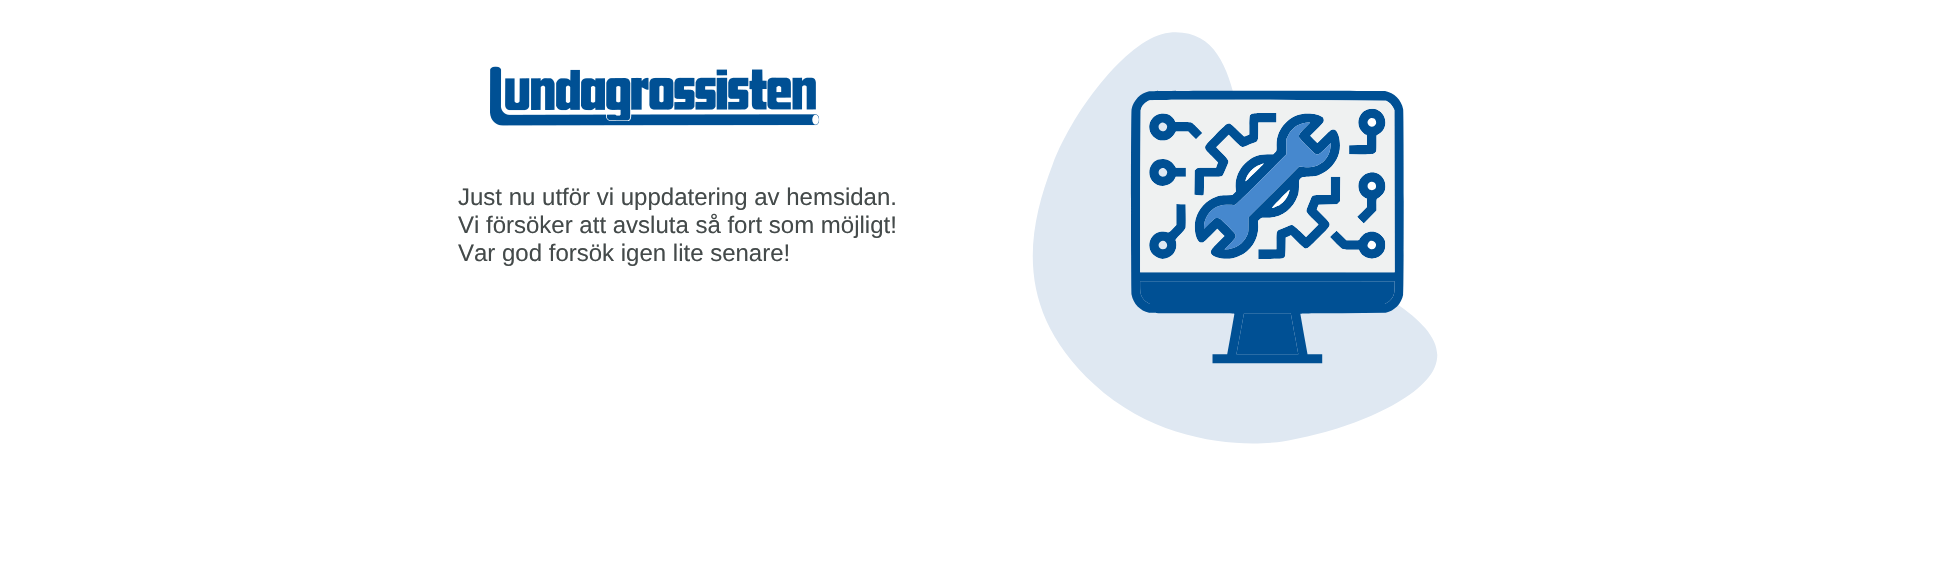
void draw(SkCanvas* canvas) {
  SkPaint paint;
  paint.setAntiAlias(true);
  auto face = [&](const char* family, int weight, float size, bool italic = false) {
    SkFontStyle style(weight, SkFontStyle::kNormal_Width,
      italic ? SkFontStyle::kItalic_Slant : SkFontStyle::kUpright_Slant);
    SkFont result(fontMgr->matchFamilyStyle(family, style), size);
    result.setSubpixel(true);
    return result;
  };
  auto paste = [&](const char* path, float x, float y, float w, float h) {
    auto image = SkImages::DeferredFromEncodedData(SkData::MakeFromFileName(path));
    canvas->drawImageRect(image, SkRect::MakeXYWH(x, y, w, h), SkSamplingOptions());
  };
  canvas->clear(0xffffffff);
  paste("img/1.png", 490, 66, 330, 60);
  paste("img/2.png", 1032, 32, 406, 412);
  auto f0 = face("Liberation Sans", 400, 24);
  paint.setColor(0xff444a4a);
  {
    const struct { const char* s; float x, y; } items[] = {
      {"Just nu utför vi uppdatering av hemsidan.", 458, 205},
      {"Vi försöker att avsluta så fort som möjligt!", 458, 233},
      {"Var god forsök igen lite senare!", 458, 261},
    };
    for (auto [s, x, y] : items) {
      canvas->drawString(s, x, y, f0, paint);
    }
  }
}
